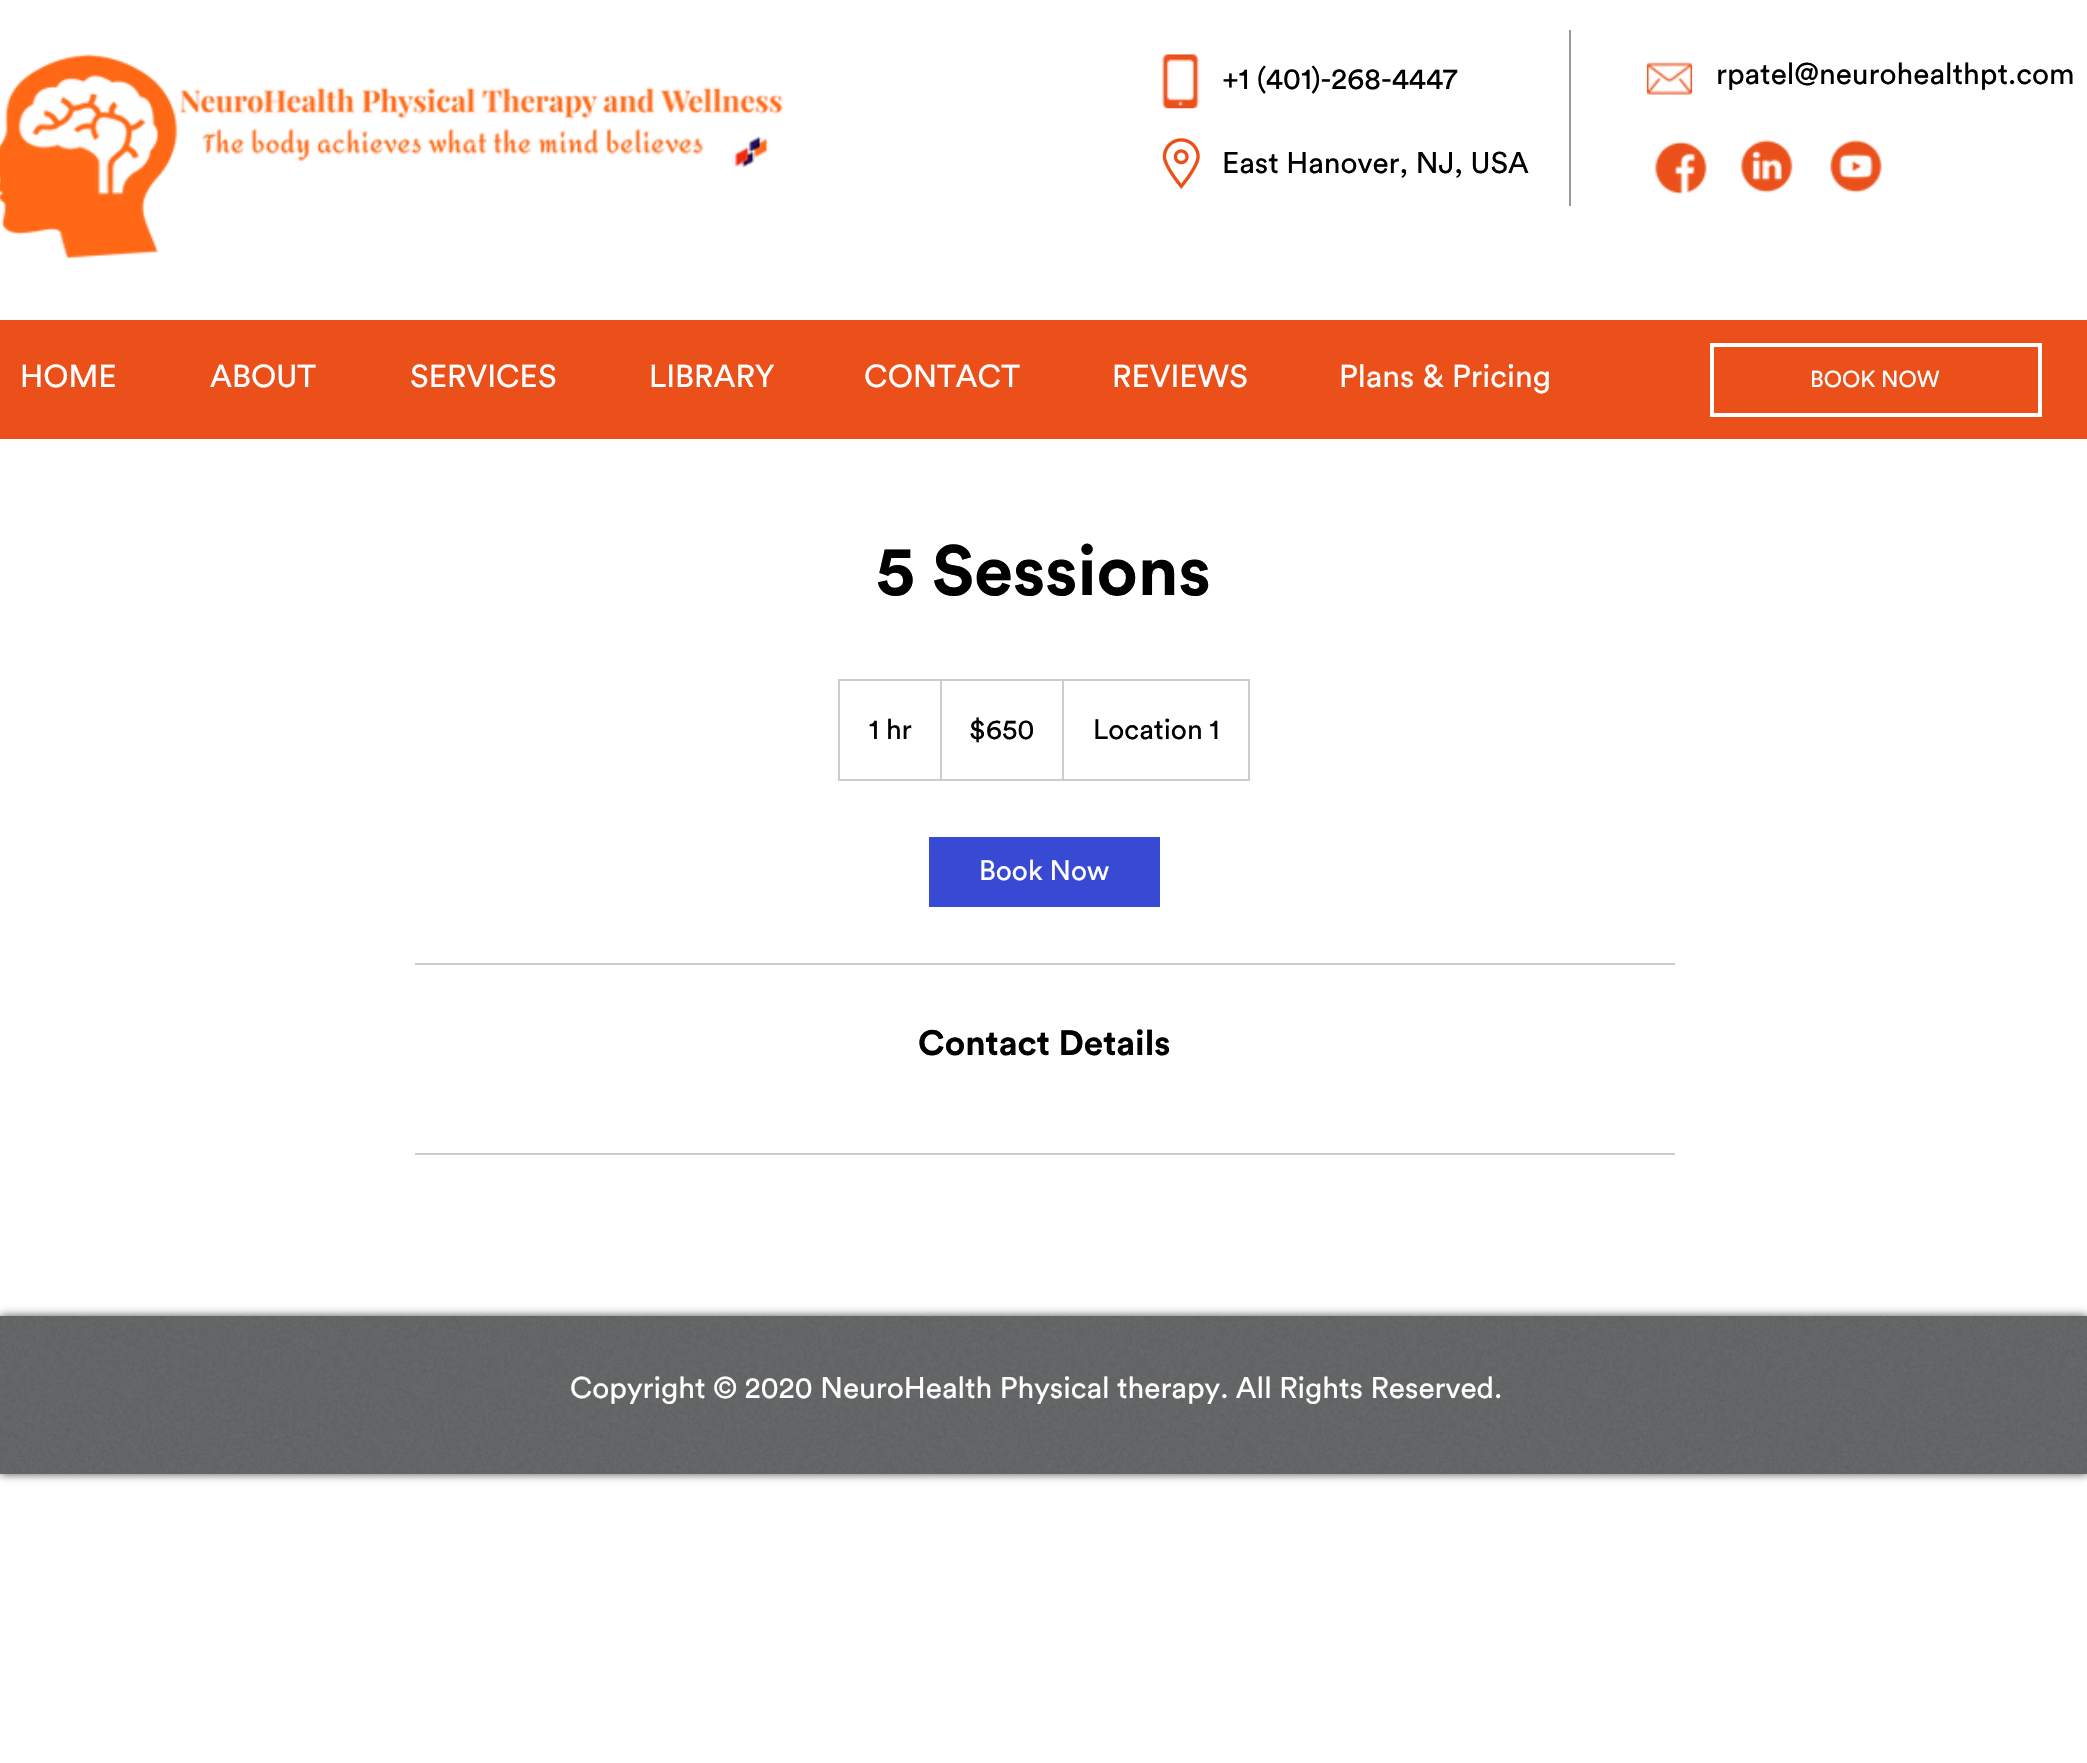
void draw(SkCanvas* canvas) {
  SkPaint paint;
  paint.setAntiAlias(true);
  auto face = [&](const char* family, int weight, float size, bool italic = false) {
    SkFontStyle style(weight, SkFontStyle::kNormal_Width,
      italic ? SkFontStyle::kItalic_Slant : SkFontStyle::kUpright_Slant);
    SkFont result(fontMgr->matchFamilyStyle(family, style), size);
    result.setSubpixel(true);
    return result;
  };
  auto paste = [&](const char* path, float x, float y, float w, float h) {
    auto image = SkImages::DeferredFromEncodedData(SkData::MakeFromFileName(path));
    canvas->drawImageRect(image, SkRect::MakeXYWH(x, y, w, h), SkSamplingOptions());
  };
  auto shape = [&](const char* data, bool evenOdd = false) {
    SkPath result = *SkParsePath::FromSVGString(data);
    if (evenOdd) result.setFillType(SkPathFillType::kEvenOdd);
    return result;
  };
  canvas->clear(0xffffffff);
  paste("img/1.png", 0, 54, 783, 205);
  paste("img/2.png", 1161, 54, 39, 55);
  paste("img/3.png", 1162, 138, 38, 51);
  paint.setColor(0xff999997);
  canvas->drawRect(SkRect::MakeXYWH(1569, 30, 2, 176), paint);
  paste("img/4.png", 1646, 62, 47, 33);
  paste("img/5.png", 1655, 142, 52, 52);
  paste("img/6.png", 1740, 139, 53, 54);
  paste("img/7.png", 1830, 139, 52, 54);
  paint.setColor(0xffeb501a);
  canvas->drawRect(SkRect::MakeXYWH(0, 320, 2087, 119), paint);
  paint.setStroke(true);
  paint.setStrokeWidth(4);
  paint.setColor(0xffffffff);
  canvas->drawRect(SkRect::MakeXYWH(1712, 345, 328, 70), paint);
  paint.setStrokeWidth(2);
  paint.setColor(0xffcccccc);
  canvas->drawRect(SkRect::MakeXYWH(839, 680, 410, 100), paint);
  canvas->save();
  canvas->clipRect(SkRect::MakeXYWH(840, 681, 408, 98));
  paint.setStroke(false);
  canvas->drawPath(shape("M940 779V679L942 681V779Z"), paint);
  canvas->drawPath(shape("M1062 779V679L1064 681V779Z"), paint);
  canvas->restore();
  {
    const struct { float x, y, w, h; SkColor color; } items[] = {
      {929, 837, 231, 70, 0xff384ad3},
      {415, 963, 1260, 2, 0xffcccccc},
      {415, 1153, 1260, 2, 0xffcccccc},
    };
    for (auto [x, y, w, h, color] : items) {
      paint.setColor(color);
      canvas->drawRect(SkRect::MakeXYWH(x, y, w, h), paint);
    }
  }
  paint.setColor(0xb3000000);
  paint.setMaskFilter(SkMaskFilter::MakeBlur(kNormal_SkBlurStyle, 4.5f));
  canvas->drawRect(SkRect::MakeXYWH(0, 1316, 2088, 158), paint);
  paint.setMaskFilter(nullptr);
  paint.setColor(0xff646667);
  canvas->drawRect(SkRect::MakeXYWH(0, 1316, 2087, 158), paint);
  paste("img/8.png", 0, 1316, 2087, 157);
  auto f0 = face("Circular", 400, 31.5f);
  paint.setColor(0xffffffff);
  {
    const struct { const char* s; float x, y; } items[] = {
      {"HOME", 20, 387},
      {"ABOUT", 210, 387},
      {"SERVICES", 410, 387},
      {"LIBRARY", 649, 387},
      {"CONTACT", 864, 387},
      {"REVIEWS", 1112, 387},
      {"Plans & Pricing", 1339, 387},
    };
    for (auto [s, x, y] : items) {
      canvas->drawString(s, x, y, f0, paint);
    }
  }
  auto f1 = face("Circular", 400, 29.75f);
  paint.setColor(0xff000000);
  {
    const struct { const char* s; float x, y; } items[] = {
      {"+1 (401)-268-4447", 1222, 89},
      {"East Hanover, NJ, USA", 1222, 173},
      {"rpatel@neurohealthpt.com", 1716, 84},
    };
    for (auto [s, x, y] : items) {
      canvas->drawString(s, x, y, f1, paint);
    }
  }
  auto f2 = face("Circular", 400, 22.75f);
  paint.setColor(0xffffffff);
  canvas->drawString("BOOK NOW", 1810, 387, f2, paint);
  auto f3 = face("Circular", 700, 70);
  paint.setColor(0xff000000);
  canvas->drawString("5 Sessions", 876, 595, f3, paint);
  auto f4 = face("Circular", 400, 28);
  {
    const struct { const char* s; float x, y; } items[] = {
      {"1 hr", 869, 739},
      {"$650", 969, 739},
      {"Location 1", 1093, 739},
    };
    for (auto [s, x, y] : items) {
      canvas->drawString(s, x, y, f4, paint);
    }
  }
  paint.setColor(0xffffffff);
  canvas->drawString("Book Now", 979, 880, f4, paint);
  auto f5 = face("Circular", 700, 35);
  paint.setColor(0xff000000);
  canvas->drawString("Contact Details", 918, 1055, f5, paint);
  paint.setColor(0xffffffff);
  canvas->drawString("Copyright © 2020 NeuroHealth Physical therapy. All Rights Reserved.", 570, 1398, f1, paint);
}
